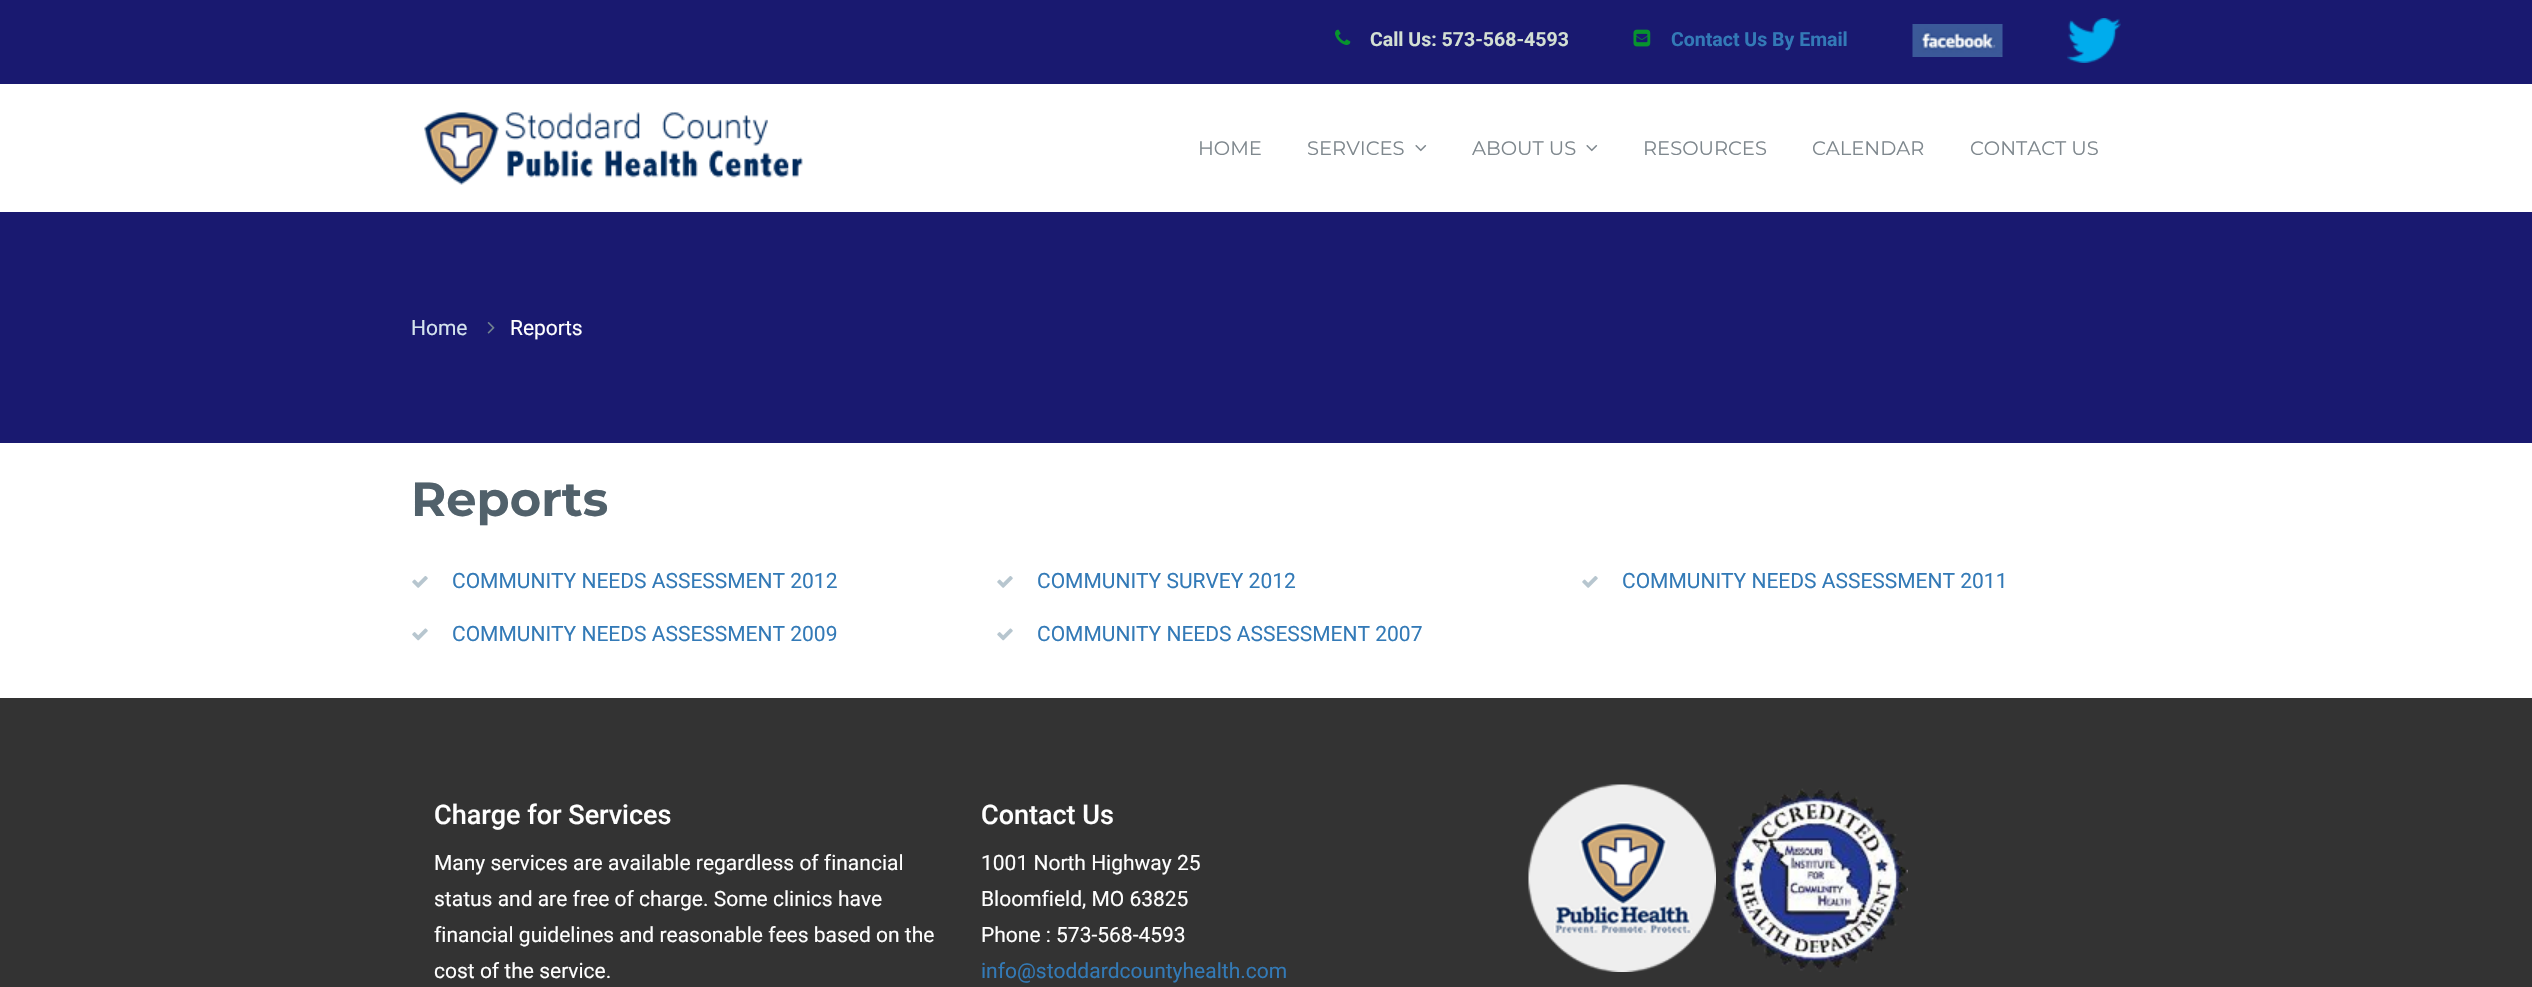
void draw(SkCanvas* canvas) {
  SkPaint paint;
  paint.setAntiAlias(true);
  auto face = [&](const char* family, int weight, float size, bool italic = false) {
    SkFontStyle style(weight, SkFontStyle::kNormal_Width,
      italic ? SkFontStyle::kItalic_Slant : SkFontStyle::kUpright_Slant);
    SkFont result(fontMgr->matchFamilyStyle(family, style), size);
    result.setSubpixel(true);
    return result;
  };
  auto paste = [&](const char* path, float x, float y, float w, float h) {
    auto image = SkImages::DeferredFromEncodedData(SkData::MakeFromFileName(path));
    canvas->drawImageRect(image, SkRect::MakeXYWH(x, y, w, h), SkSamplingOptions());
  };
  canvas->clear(0xffffffff);
  paint.setColor(0xff191970);
  canvas->drawRect(SkRect::MakeXYWH(0, 0, 2532, 84), paint);
  paste("img/1.png", 1335, 29, 16, 16);
  paste("img/2.png", 1633, 29, 18, 18);
  paste("img/3.png", 1912, 24, 91, 33);
  paste("img/4.png", 2067, 18, 54, 45);
  paste("img/5.png", 424, 112, 379, 73);
  paste("img/6.png", 1415, 145, 12, 7);
  paste("img/6.png", 1586, 145, 12, 7);
  canvas->drawRect(SkRect::MakeXYWH(0, 212, 2532, 231), paint);
  paste("img/7.png", 487, 322, 8, 12);
  paste("img/8.png", 412, 576, 16, 12);
  paste("img/8.png", 997, 576, 16, 12);
  paste("img/8.png", 1582, 576, 16, 12);
  paste("img/9.png", 412, 628, 16, 13);
  paste("img/9.png", 997, 628, 16, 13);
  paint.setColor(0xff333333);
  canvas->drawRect(SkRect::MakeXYWH(0, 698, 2532, 289), paint);
  paste("img/10.png", 1528, 784, 188, 188);
  paste("img/11.png", 1723, 788, 185, 184);
  auto f0 = face("Roboto", 700, 19.5f);
  paint.setColor(0xffd3dfd3);
  canvas->drawString("Call Us: 573-568-4593", 1370, 46, f0, paint);
  paint.setColor(0xff337ab7);
  canvas->drawString("Contact Us By Email", 1671, 46, f0, paint);
  auto f1 = face("Montserrat", 400, 19.5f);
  paint.setColor(0xff7e878d);
  {
    const struct { const char* s; float x, y; } items[] = {
      {"HOME", 1198, 155},
      {"SERVICES", 1307, 155},
      {"ABOUT US", 1472, 155},
      {"RESOURCES", 1643, 155},
      {"CALENDAR", 1812, 155},
      {"CONTACT US", 1970, 155},
    };
    for (auto [s, x, y] : items) {
      canvas->drawString(s, x, y, f1, paint);
    }
  }
  auto f2 = face("Roboto", 400, 21);
  paint.setColor(0xffd4e3ee);
  canvas->drawString("Home", 411, 335, f2, paint);
  paint.setColor(0xffffffff);
  canvas->drawString("Reports", 510, 335, f2, paint);
  auto f3 = face("Montserrat", 700, 48);
  paint.setColor(0xff51616b);
  canvas->drawString("Reports", 411, 516, f3, paint);
  paint.setColor(0xff337ab7);
  {
    const struct { const char* s; float x, y; } items[] = {
      {"COMMUNITY NEEDS ASSESSMENT 2012", 452, 588},
      {"COMMUNITY SURVEY 2012", 1037, 588},
      {"COMMUNITY NEEDS ASSESSMENT 2011", 1622, 588},
      {"COMMUNITY NEEDS ASSESSMENT 2009", 452, 641},
      {"COMMUNITY NEEDS ASSESSMENT 2007", 1037, 641},
    };
    for (auto [s, x, y] : items) {
      canvas->drawString(s, x, y, f2, paint);
    }
  }
  auto f4 = face("Roboto", 500, 27);
  paint.setColor(0xffffffff);
  canvas->drawString("Charge for Services", 434, 824, f4, paint);
  {
    const struct { const char* s; float x, y; } items[] = {
      {"Many services are available regardless of financial", 434, 870},
      {"status and are free of charge. Some clinics have", 434, 906},
      {"financial guidelines and reasonable fees based on the", 434, 942},
      {"cost of the service.", 434, 978},
    };
    for (auto [s, x, y] : items) {
      canvas->drawString(s, x, y, f2, paint);
    }
  }
  canvas->drawString("Contact Us", 981, 824, f4, paint);
  {
    const struct { const char* s; float x, y; } items[] = {
      {"1001 North Highway 25", 981, 870},
      {"Bloomfield, MO 63825", 981, 906},
      {"Phone : 573-568-4593", 981, 942},
    };
    for (auto [s, x, y] : items) {
      canvas->drawString(s, x, y, f2, paint);
    }
  }
  paint.setColor(0xff337ab7);
  canvas->drawString("info@stoddardcountyhealth.com", 981, 978, f2, paint);
}
